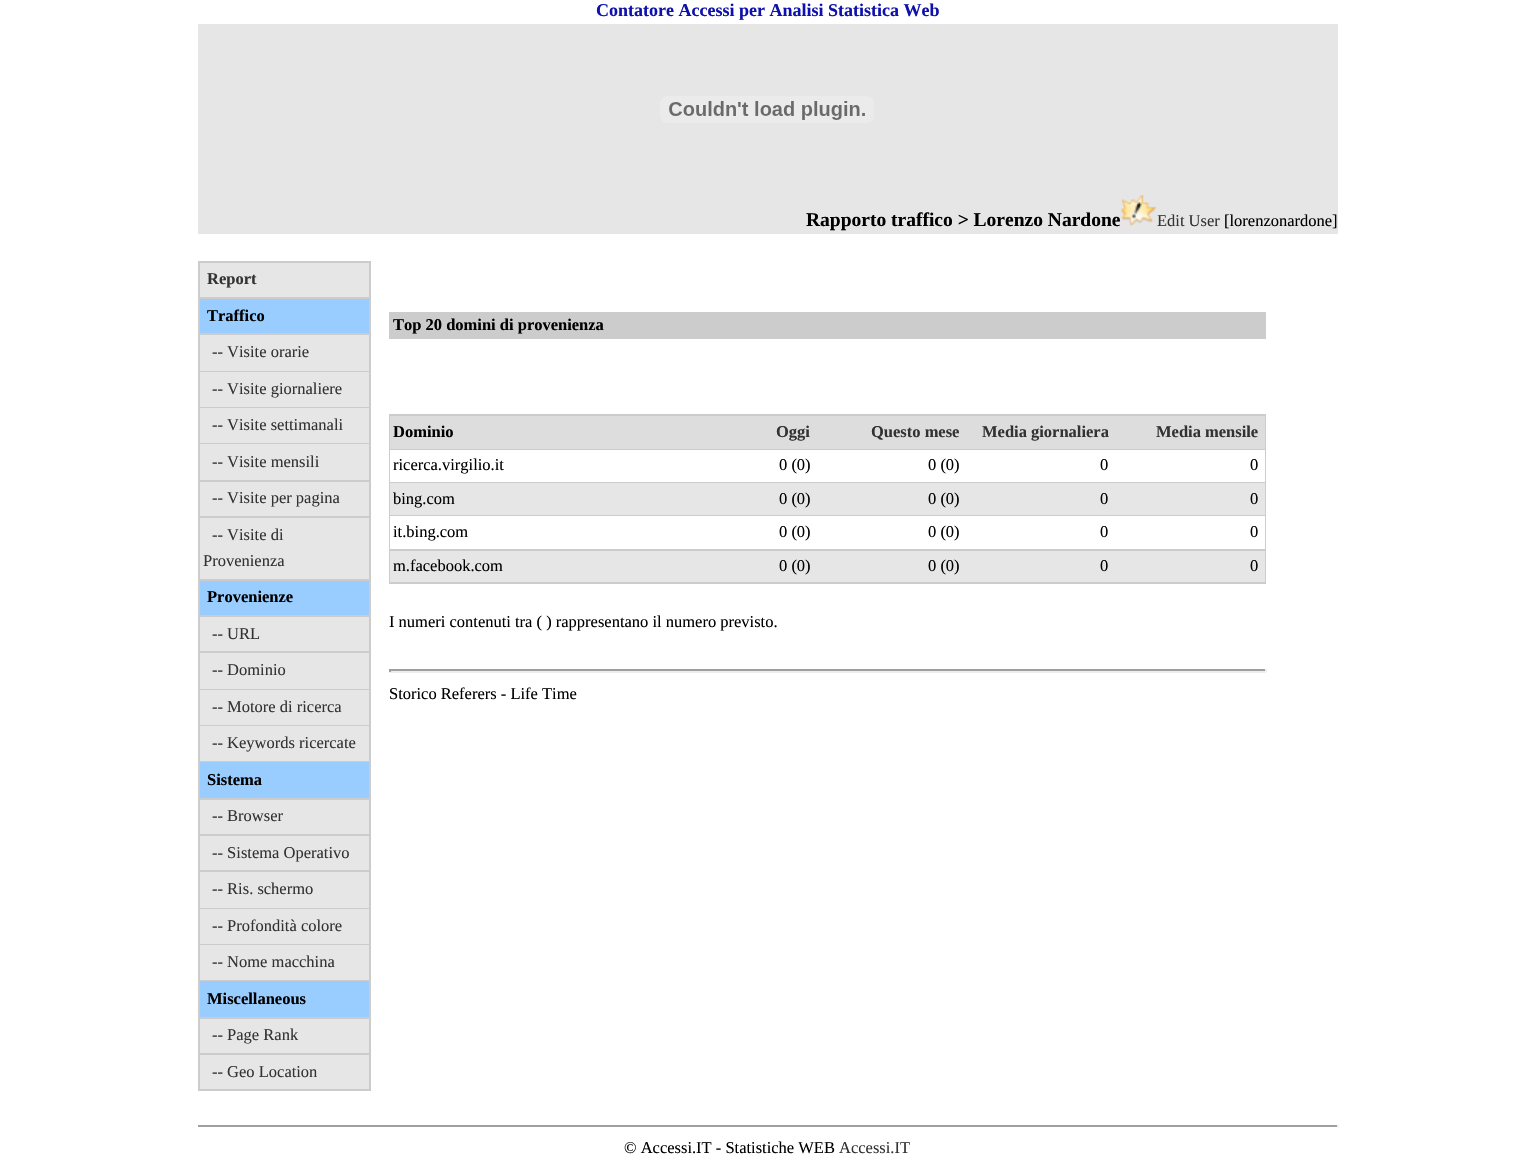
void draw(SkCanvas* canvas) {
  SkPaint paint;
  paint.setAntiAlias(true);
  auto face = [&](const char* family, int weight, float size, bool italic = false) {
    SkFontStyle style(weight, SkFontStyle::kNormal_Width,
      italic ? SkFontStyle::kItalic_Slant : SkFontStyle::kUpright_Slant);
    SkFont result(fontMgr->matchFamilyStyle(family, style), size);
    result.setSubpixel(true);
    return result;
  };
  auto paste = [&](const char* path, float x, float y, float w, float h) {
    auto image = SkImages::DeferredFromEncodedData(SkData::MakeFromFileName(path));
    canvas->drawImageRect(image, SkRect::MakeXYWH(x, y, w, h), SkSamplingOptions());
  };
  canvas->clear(0xffffffff);
  paint.setColor(0xffe6e6e6);
  canvas->drawRect(SkRect::MakeXYWH(198, 24, 1140, 210), paint);
  paste("img/1.png", 660, 96, 214, 27);
  {
    const struct { float x, y, w, h; SkColor color; } items[] = {
      {198, 261, 173, 830, 0xffcccccc},
      {200, 263, 169, 34, 0xffe6e6e6},
      {200, 299, 169, 34, 0xff99ccff},
      {200, 335, 169, 36, 0xffe6e6e6},
      {200, 372, 169, 35, 0xffe6e6e6},
      {200, 408, 169, 35, 0xffe6e6e6},
      {200, 444, 169, 36, 0xffe6e6e6},
      {200, 482, 169, 34, 0xffe6e6e6},
      {200, 518, 169, 61, 0xffe6e6e6},
      {200, 581, 169, 34, 0xff99ccff},
      {200, 617, 169, 34, 0xffe6e6e6},
      {200, 653, 169, 36, 0xffe6e6e6},
      {200, 690, 169, 35, 0xffe6e6e6},
      {200, 726, 169, 35, 0xffe6e6e6},
      {200, 762, 169, 36, 0xff99ccff},
      {200, 800, 169, 34, 0xffe6e6e6},
      {200, 836, 169, 34, 0xffe6e6e6},
      {200, 872, 169, 36, 0xffe6e6e6},
      {200, 909, 169, 35, 0xffe6e6e6},
      {200, 945, 169, 35, 0xffe6e6e6},
      {200, 981, 169, 36, 0xff99ccff},
      {200, 1019, 169, 34, 0xffe6e6e6},
      {200, 1055, 169, 34, 0xffe6e6e6},
      {389, 312, 877, 27, 0xffcccccc},
      {389, 414, 877, 170, 0xffcccccc},
      {390, 416, 875, 33, 0xffdddddd},
      {390, 450, 875, 32, 0xffffffff},
      {390, 483, 875, 32, 0xffe6e6e6},
      {390, 516, 875, 33, 0xffffffff},
      {390, 551, 875, 31, 0xffe6e6e6},
      {389, 669, 877, 2, 0xff9f9f9f},
      {1265, 669, 2, 3, 0xffeeeeee},
      {389, 671, 877, 2, 0xffeeeeee},
      {389, 669, 2, 3, 0xff9f9f9f},
      {198, 1125, 1140, 2, 0xff9f9f9f},
      {1337, 1125, 2, 2, 0xffeeeeee},
    };
    for (auto [x, y, w, h, color] : items) {
      paint.setColor(color);
      canvas->drawRect(SkRect::MakeXYWH(x, y, w, h), paint);
    }
  }
  auto f0 = face("Liberation Serif", 700, 18);
  paint.setColor(0xff0f11ac);
  canvas->drawString("Contatore Accessi per Analisi Statistica Web", 596, 16, f0, paint);
  auto f1 = face("Liberation Serif", 700, 19.5f);
  paint.setColor(0xff000000);
  canvas->drawString("Rapporto traffico > Lorenzo Nardone", 806, 226, f1, paint);
  paste("img/2.png", 1120, 195, 37, 31);
  auto f2 = face("Liberation Serif", 400, 16.5f);
  paint.setColor(0xff333333);
  canvas->drawString("Edit User", 1157, 226, f2, paint);
  paint.setColor(0xff000000);
  canvas->drawString("[lorenzonardone]", 1224, 226, f2, paint);
  auto f3 = face("Liberation Serif", 700, 16.5f);
  paint.setColor(0xff333333);
  canvas->drawString("Report", 207, 284, f3, paint);
  paint.setColor(0xff000000);
  canvas->drawString("Traffico", 207, 321, f3, paint);
  paint.setColor(0xff333333);
  {
    const struct { const char* s; float x, y; } items[] = {
      {"-- Visite orarie", 212, 357},
      {"-- Visite giornaliere", 212, 394},
      {"-- Visite settimanali", 212, 430},
      {"-- Visite mensili", 212, 467},
      {"-- Visite per pagina", 212, 503},
      {"-- Visite di", 212, 540},
      {"Provenienza", 203, 566},
    };
    for (auto [s, x, y] : items) {
      canvas->drawString(s, x, y, f2, paint);
    }
  }
  paint.setColor(0xff000000);
  canvas->drawString("Provenienze", 207, 602, f3, paint);
  paint.setColor(0xff333333);
  {
    const struct { const char* s; float x, y; } items[] = {
      {"-- URL", 212, 639},
      {"-- Dominio", 212, 675},
      {"-- Motore di ricerca", 212, 712},
      {"-- Keywords ricercate", 212, 748},
    };
    for (auto [s, x, y] : items) {
      canvas->drawString(s, x, y, f2, paint);
    }
  }
  paint.setColor(0xff000000);
  canvas->drawString("Sistema", 207, 785, f3, paint);
  paint.setColor(0xff333333);
  {
    const struct { const char* s; float x, y; } items[] = {
      {"-- Browser", 212, 821},
      {"-- Sistema Operativo", 212, 858},
      {"-- Ris. schermo", 212, 894},
      {"-- Profondità colore", 212, 931},
      {"-- Nome macchina", 212, 967},
    };
    for (auto [s, x, y] : items) {
      canvas->drawString(s, x, y, f2, paint);
    }
  }
  paint.setColor(0xff000000);
  canvas->drawString("Miscellaneous", 207, 1004, f3, paint);
  paint.setColor(0xff333333);
  canvas->drawString("-- Page Rank", 212, 1040, f2, paint);
  canvas->drawString("-- Geo Location", 212, 1077, f2, paint);
  paint.setColor(0xff000000);
  canvas->drawString("Top 20 domini di provenienza", 393, 330, f3, paint);
  canvas->drawString("Dominio", 393, 437, f3, paint);
  paint.setColor(0xff333333);
  {
    const struct { const char* s; float x, y; } items[] = {
      {"Oggi", 776, 437},
      {"Questo mese", 871, 437},
      {"Media giornaliera", 982, 437},
      {"Media mensile", 1156, 437},
    };
    for (auto [s, x, y] : items) {
      canvas->drawString(s, x, y, f3, paint);
    }
  }
  paint.setColor(0xff000000);
  {
    const struct { const char* s; float x, y; } items[] = {
      {"ricerca.virgilio.it", 393, 470},
      {"0 (0)", 779, 470},
      {"0 (0)", 928, 470},
      {"0", 1100, 470},
      {"0", 1250, 470},
      {"bing.com", 393, 504},
      {"0 (0)", 779, 504},
      {"0 (0)", 928, 504},
      {"0", 1100, 504},
      {"0", 1250, 504},
      {"it.bing.com", 393, 537},
      {"0 (0)", 779, 537},
      {"0 (0)", 928, 537},
      {"0", 1100, 537},
      {"0", 1250, 537},
      {"m.facebook.com", 393, 571},
      {"0 (0)", 779, 571},
      {"0 (0)", 928, 571},
      {"0", 1100, 571},
      {"0", 1250, 571},
      {"I numeri contenuti tra ( ) rappresentano il numero previsto.", 389, 627},
      {"Storico Referers - Life Time", 389, 699},
      {"© Accessi.IT - Statistiche WEB", 624, 1153},
    };
    for (auto [s, x, y] : items) {
      canvas->drawString(s, x, y, f2, paint);
    }
  }
  paint.setColor(0xff333333);
  canvas->drawString("Accessi.IT", 839, 1153, f2, paint);
}
